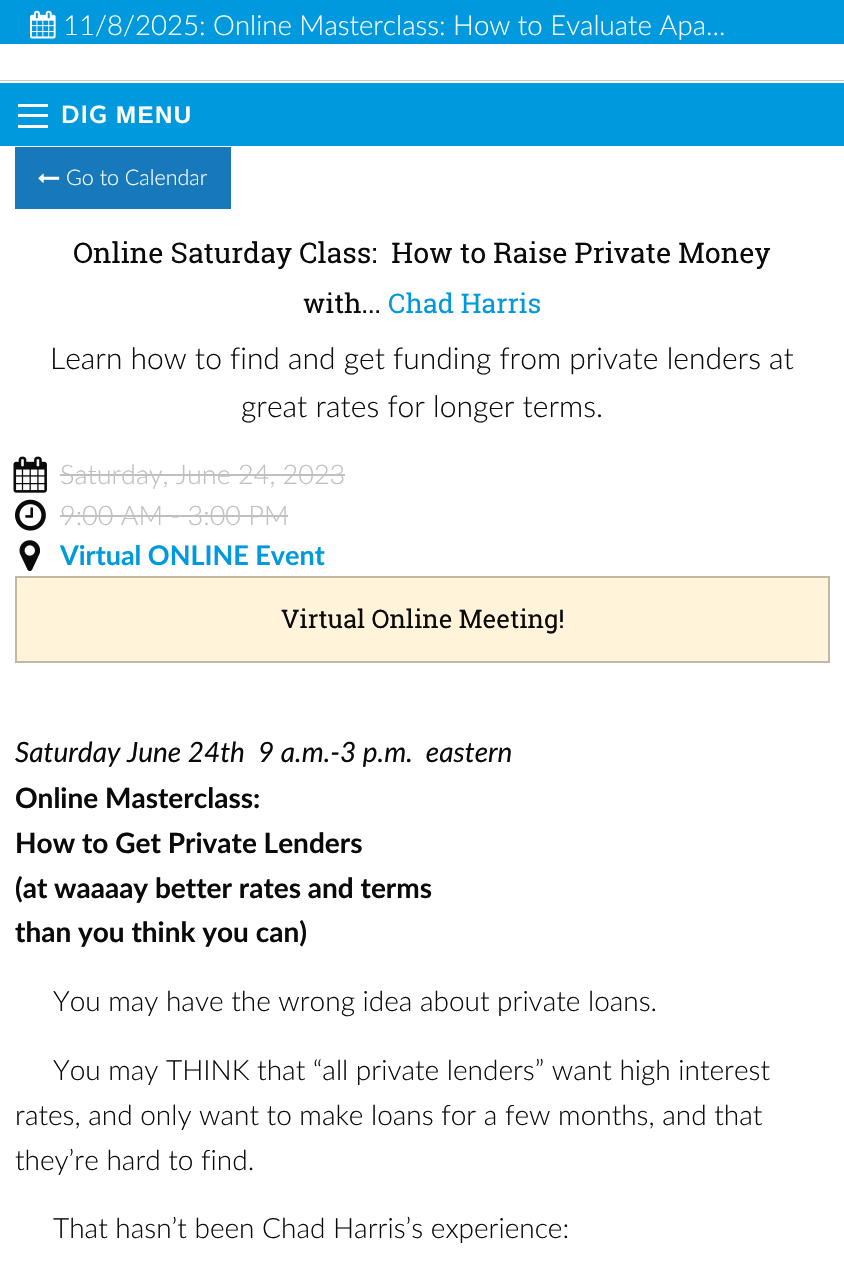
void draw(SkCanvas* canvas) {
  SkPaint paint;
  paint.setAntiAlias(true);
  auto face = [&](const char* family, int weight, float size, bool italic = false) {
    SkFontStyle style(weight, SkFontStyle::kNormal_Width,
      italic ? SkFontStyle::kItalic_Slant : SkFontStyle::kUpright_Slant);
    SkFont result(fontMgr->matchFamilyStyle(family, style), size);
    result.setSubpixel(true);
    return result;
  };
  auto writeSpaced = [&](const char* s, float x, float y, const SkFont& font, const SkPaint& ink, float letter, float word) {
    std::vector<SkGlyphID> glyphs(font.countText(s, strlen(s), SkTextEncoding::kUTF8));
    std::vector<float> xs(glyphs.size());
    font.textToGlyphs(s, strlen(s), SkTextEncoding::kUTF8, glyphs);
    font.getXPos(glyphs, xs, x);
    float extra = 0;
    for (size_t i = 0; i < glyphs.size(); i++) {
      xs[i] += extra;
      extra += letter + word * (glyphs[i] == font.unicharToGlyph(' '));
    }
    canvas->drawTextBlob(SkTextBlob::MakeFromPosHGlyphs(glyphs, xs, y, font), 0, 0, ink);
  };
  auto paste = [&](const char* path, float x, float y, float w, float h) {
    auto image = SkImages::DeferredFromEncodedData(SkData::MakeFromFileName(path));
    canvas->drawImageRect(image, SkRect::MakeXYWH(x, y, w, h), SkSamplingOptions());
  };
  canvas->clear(0xffffffff);
  paint.setColor(0xff0099dd);
  canvas->drawRect(SkRect::MakeXYWH(0, 0, 844, 44), paint);
  paste("img/1.png", 30, 10, 26, 29);
  {
    const struct { float x, y, w, h; SkColor color; } items[] = {
      {0, 80, 844, 1, 0xffcacaca},
      {0, 83, 844, 63, 0xff0099dd},
      {18, 125, 30, 3, 0xfffefefe},
      {18, 114, 30, 3, 0xfffefefe},
      {18, 104, 30, 3, 0xfffefefe},
      {15, 147, 216, 62, 0xff1779ba},
    };
    for (auto [x, y, w, h, color] : items) {
      paint.setColor(color);
      canvas->drawRect(SkRect::MakeXYWH(x, y, w, h), paint);
    }
  }
  paste("img/2.png", 38, 173, 22, 10);
  paste("img/3.png", 13, 456, 34, 37);
  paint.setColor(0xffc0c0c0);
  canvas->drawRect(SkRect::MakeXYWH(60, 474, 285, 2), paint);
  paste("img/4.png", 15, 499, 31, 32);
  canvas->drawRect(SkRect::MakeXYWH(60, 515, 228, 2), paint);
  paste("img/5.png", 19, 540, 22, 32);
  paint.setColor(0xfffff3d9);
  canvas->drawRect(SkRect::MakeXYWH(16, 577, 813, 85), paint);
  paint.setStroke(true);
  paint.setStrokeWidth(2);
  paint.setColor(0xffc2b9a5);
  canvas->drawRect(SkRect::MakeXYWH(16, 577, 813, 85), paint);
  auto f0 = face("Lato", 300, 27.6f);
  paint.setStroke(false);
  paint.setColor(0xfffefefe);
  canvas->drawString("11/8/2025: Online Masterclass: How to Evaluate Apa...", 63, 35, f0, paint);
  auto f1 = face("Lato", 700, 24);
  writeSpaced("DIG", 61, 123, f1, paint, 1.5f, 0);
  auto f2 = face("Liberation Sans", 700, 24);
  writeSpaced("MENU", 116, 123, f2, paint, 1.5f, 0);
  auto f3 = face("Lato", 300, 21.5f);
  canvas->drawString("Go to Calendar", 66, 185, f3, paint);
  auto f4 = face("Roboto Slab", 400, 28.5f);
  paint.setColor(0xff0a0a0a);
  canvas->drawString("Online Saturday Class:  How to Raise Private Money", 73, 263, f4, paint);
  auto f5 = face("Roboto Slab", 400, 27);
  canvas->drawString("with...", 303, 313, f5, paint);
  paint.setColor(0xff0099dd);
  canvas->drawString("Chad Harris", 388, 313, f5, paint);
  auto f6 = face("Lato", 300, 30);
  paint.setColor(0xff0a0a0a);
  canvas->drawString("Learn how to find and get funding from private lenders at", 50, 369, f6, paint);
  canvas->drawString("great rates for longer terms.", 241, 417, f6, paint);
  auto f7 = face("Lato", 300, 27);
  paint.setColor(0xffc0c0c0);
  canvas->drawString("Saturday, June 24, 2023", 60, 484, f7, paint);
  canvas->drawString("9:00 AM - 3:00 PM", 60, 525, f7, paint);
  auto f8 = face("Lato", 700, 27);
  paint.setColor(0xff0099dd);
  canvas->drawString("Virtual ONLINE Event", 60, 565, f8, paint);
  auto f9 = face("Roboto Slab", 400, 25.5f);
  paint.setColor(0xff0a0a0a);
  canvas->drawString("Virtual Online Meeting!", 281, 628, f9, paint);
  auto f10 = face("Lato", 400, 28, true);
  canvas->drawString("Saturday June 24th  9 a.m.-3 p.m.  eastern", 15, 762, f10, paint);
  auto f11 = face("Lato", 700, 28);
  {
    const struct { const char* s; float x, y; } items[] = {
      {"Online Masterclass:", 15, 808},
      {"How to Get Private Lenders", 15, 853},
      {"(at waaaay better rates and terms", 15, 898},
      {"than you think you can)", 15, 942},
    };
    for (auto [s, x, y] : items) {
      canvas->drawString(s, x, y, f11, paint);
    }
  }
  auto f12 = face("Lato", 300, 28);
  {
    const struct { const char* s; float x, y; } items[] = {
      {"You may have the wrong idea about private loans.", 53, 1011},
      {"You may THINK that “all private lenders” want high interest", 53, 1080},
      {"rates, and only want to make loans for a few months, and that", 15, 1125},
      {"they’re hard to find.", 15, 1170},
      {"That hasn’t been Chad Harris’s experience:", 53, 1238},
    };
    for (auto [s, x, y] : items) {
      canvas->drawString(s, x, y, f12, paint);
    }
  }
}
